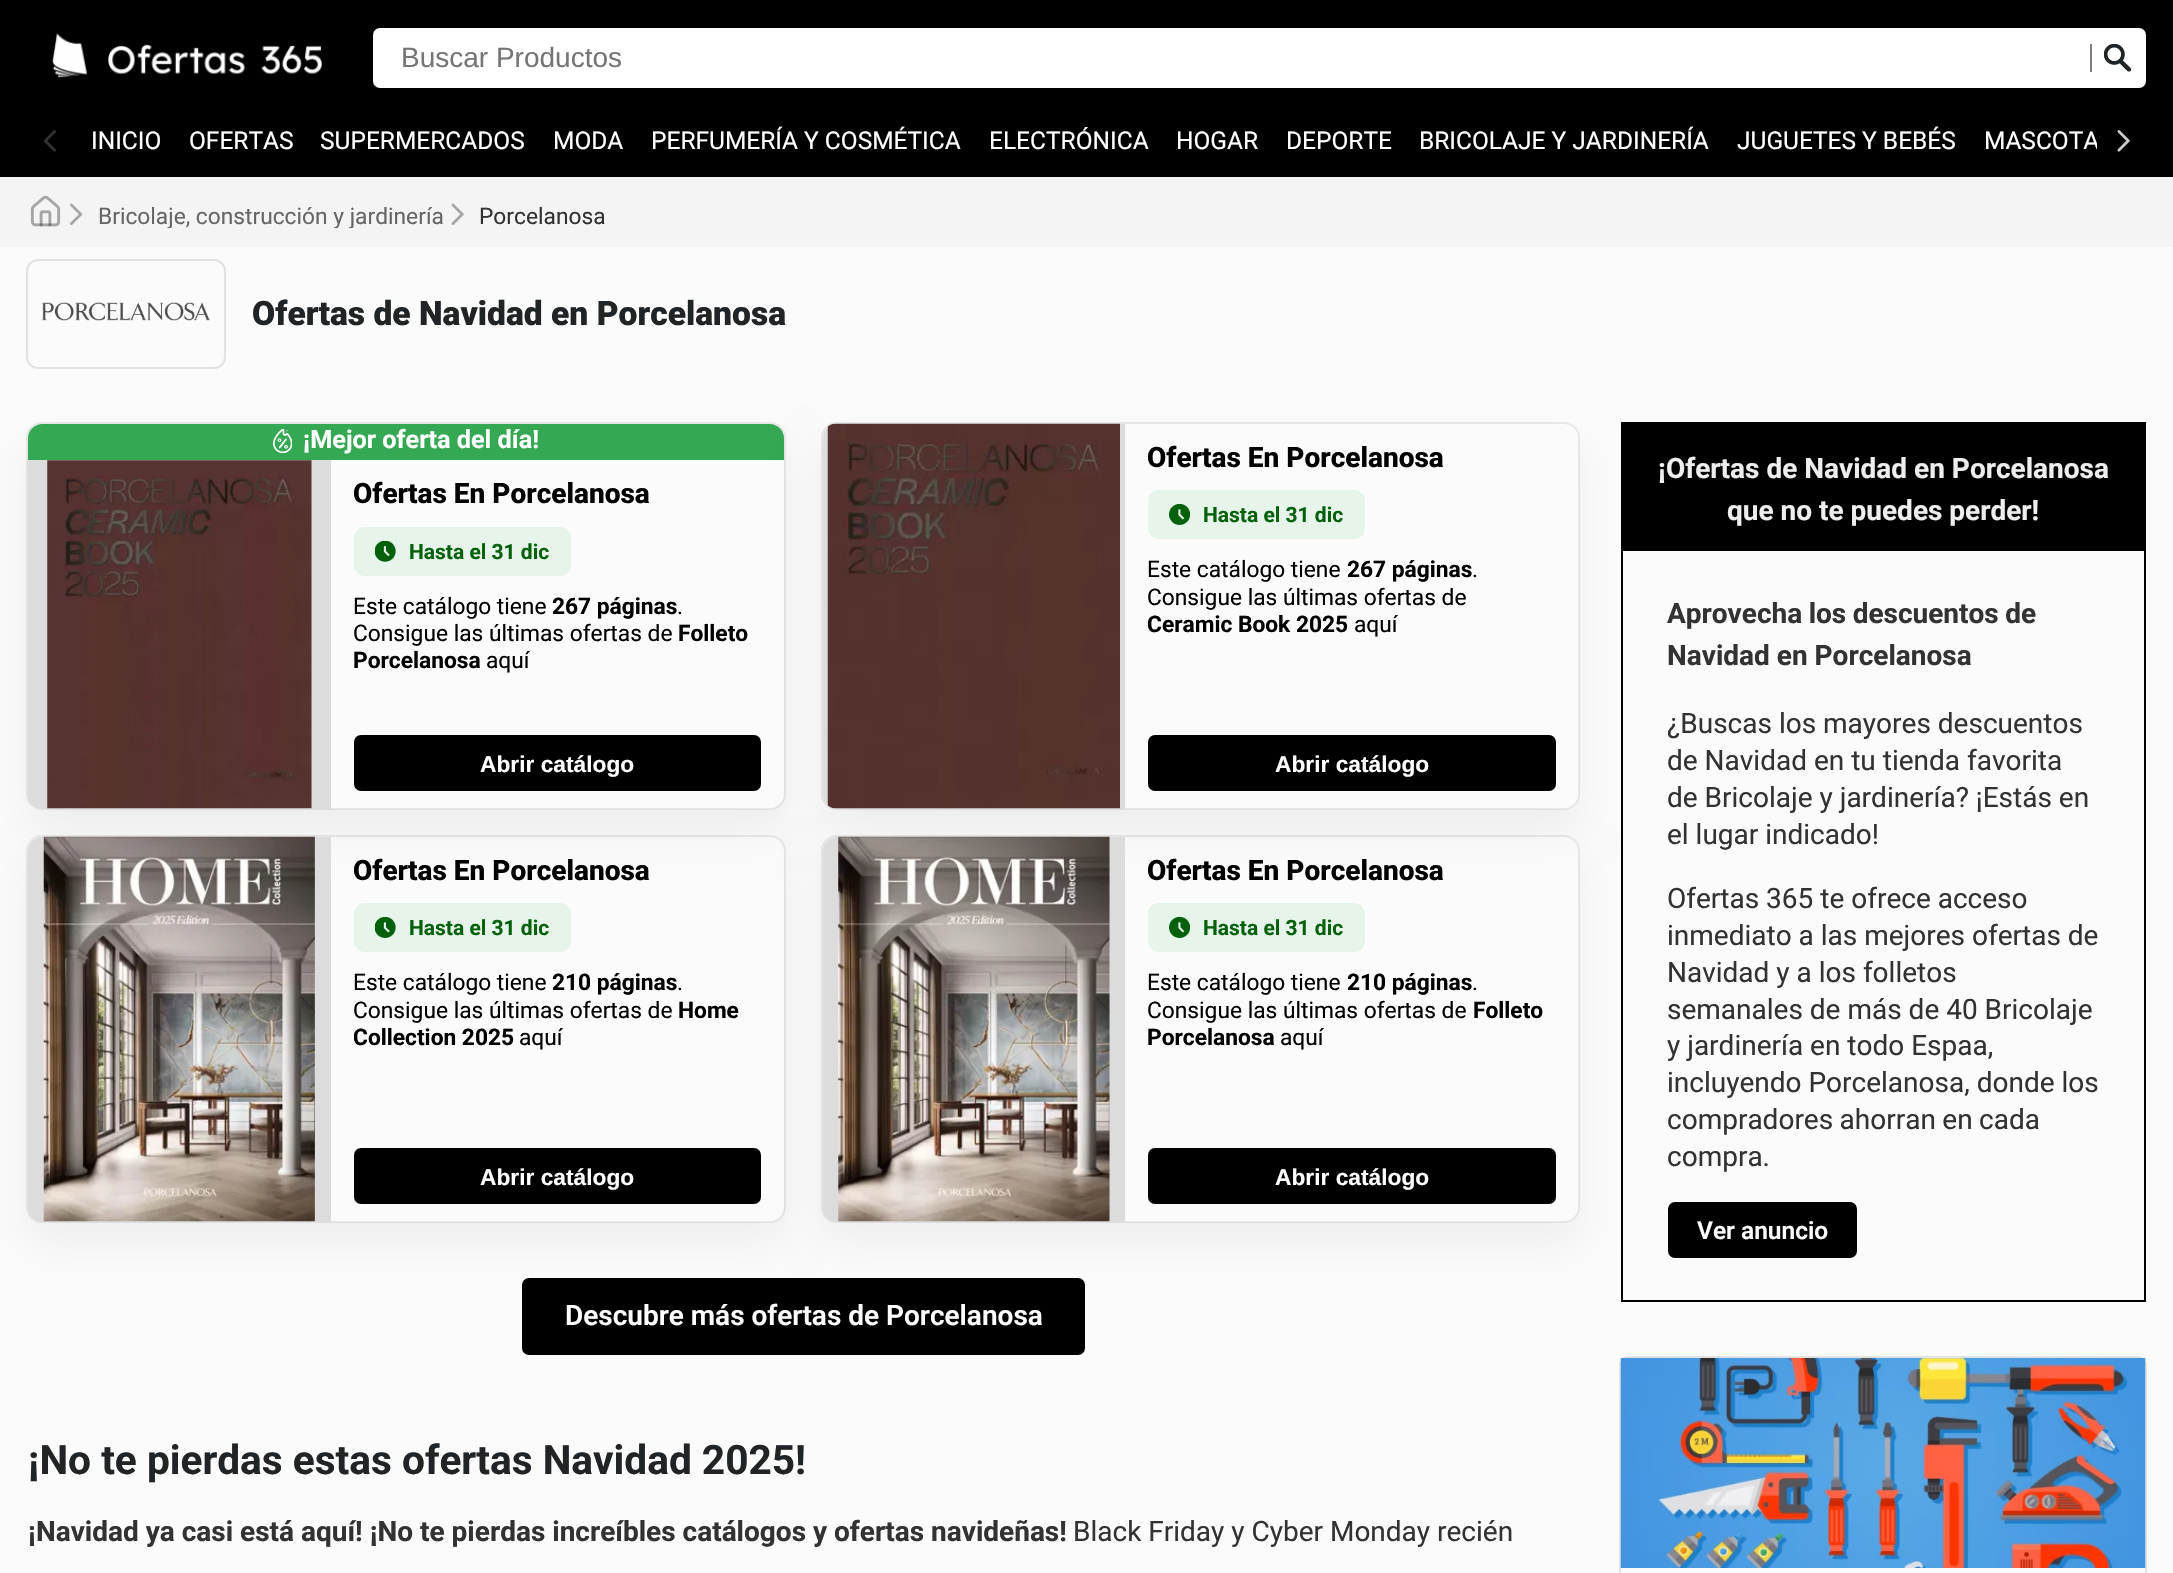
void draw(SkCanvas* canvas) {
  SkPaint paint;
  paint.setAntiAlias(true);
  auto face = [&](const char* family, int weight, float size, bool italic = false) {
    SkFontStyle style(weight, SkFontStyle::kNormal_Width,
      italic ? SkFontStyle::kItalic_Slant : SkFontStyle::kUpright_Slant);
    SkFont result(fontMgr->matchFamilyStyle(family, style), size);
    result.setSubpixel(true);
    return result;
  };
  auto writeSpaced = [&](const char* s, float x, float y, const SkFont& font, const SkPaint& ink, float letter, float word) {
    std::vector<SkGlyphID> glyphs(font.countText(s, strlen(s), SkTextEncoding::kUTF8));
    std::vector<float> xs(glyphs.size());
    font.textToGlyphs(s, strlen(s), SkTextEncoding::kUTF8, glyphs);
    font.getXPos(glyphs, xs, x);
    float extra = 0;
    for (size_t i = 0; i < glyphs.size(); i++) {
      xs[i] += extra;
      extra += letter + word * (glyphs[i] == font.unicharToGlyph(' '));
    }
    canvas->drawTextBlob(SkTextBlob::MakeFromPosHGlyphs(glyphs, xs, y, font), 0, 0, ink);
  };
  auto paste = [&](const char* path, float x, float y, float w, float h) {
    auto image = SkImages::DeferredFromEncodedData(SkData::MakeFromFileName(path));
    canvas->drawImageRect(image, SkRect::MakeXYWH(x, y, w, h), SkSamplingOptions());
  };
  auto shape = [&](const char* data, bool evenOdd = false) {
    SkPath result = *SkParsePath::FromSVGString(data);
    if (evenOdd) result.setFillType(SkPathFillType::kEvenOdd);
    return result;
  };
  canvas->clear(0xfffbfbfb);
  paint.setColor(0xff000000);
  canvas->drawRect(SkRect::MakeXYWH(0, 0, 2173, 177), paint);
  paste("img/1.png", 52, 33, 270, 45);
  paint.setColor(0xffffffff);
  canvas->drawRoundRect(SkRect::MakeXYWH(373, 28, 1773, 60), 7, 7, paint);
  paint.setColor(0xff808080);
  canvas->drawRect(SkRect::MakeXYWH(2090, 44, 2, 28), paint);
  paste("img/2.png", 2104, 44, 28, 28);
  paste("img/3.png", 43, 130, 13, 22);
  paste("img/4.png", 2117, 130, 13, 22);
  paint.setColor(0xfff4f4f4);
  canvas->drawRect(SkRect::MakeXYWH(0, 177, 2173, 70), paint);
  paste("img/5.png", 30, 195, 31, 32);
  paste("img/6.png", 70, 203, 13, 22);
  paste("img/7.png", 451, 203, 13, 22);
  paint.setStroke(true);
  paint.setStrokeWidth(2);
  paint.setColor(0xffe2e2e2);
  canvas->drawRoundRect(SkRect::MakeXYWH(27, 260, 198, 108), 11, 11, paint);
  paste("img/8.png", 42, 302, 168, 19);
  canvas->save();
  canvas->clipPath(shape("M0 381H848V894H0ZM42 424H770C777.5 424 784 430.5 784 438V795C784 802.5 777.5 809 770 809H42C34.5 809 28 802.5 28 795V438C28 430.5 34.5 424 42 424Z", true), true);
  paint.setStroke(false);
  paint.setColor(0x0d000000);
  paint.setMaskFilter(SkMaskFilter::MakeBlur(kNormal_SkBlurStyle, 21));
  canvas->drawRoundRect(SkRect::MakeXYWH(28, 445, 756, 385), 14, 14, paint);
  paint.setMaskFilter(nullptr);
  canvas->restore();
  paint.setStroke(true);
  paint.setColor(0x12000000);
  canvas->drawRoundRect(SkRect::MakeXYWH(27, 423, 758, 386), 15, 15, paint);
  paint.setStroke(false);
  paint.setColor(0xff34a853);
  canvas->drawPath(shape("M42 424H770C777.5 424 784 430.5 784 438V460H28V438C28 430.5 34.5 424 42 424Z"), paint);
  paste("img/9.png", 273, 429, 19, 24);
  paint.setColor(0xff000000);
  canvas->drawRoundRect(SkRect::MakeXYWH(355, 736, 405, 54), 6, 6, paint);
  paint.setStroke(true);
  canvas->drawRoundRect(SkRect::MakeXYWH(355, 736, 405, 54), 6, 6, paint);
  canvas->drawRect(SkRect::MakeXYWH(1622, 423, 523, 878), paint);
  paint.setStroke(false);
  canvas->drawRect(SkRect::MakeXYWH(1623, 424, 521, 127), paint);
  canvas->save();
  canvas->clipPath(shape("M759 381H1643V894H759ZM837 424H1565C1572.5 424 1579 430.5 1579 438V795C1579 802.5 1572.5 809 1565 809H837C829.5 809 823 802.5 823 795V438C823 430.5 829.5 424 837 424Z", true), true);
  paint.setColor(0x0d000000);
  paint.setMaskFilter(SkMaskFilter::MakeBlur(kNormal_SkBlurStyle, 21));
  canvas->drawRoundRect(SkRect::MakeXYWH(823, 445, 756, 385), 14, 14, paint);
  paint.setMaskFilter(nullptr);
  canvas->restore();
  paint.setStroke(true);
  paint.setColor(0x12000000);
  canvas->drawRoundRect(SkRect::MakeXYWH(822, 423, 757, 386), 15, 15, paint);
  paint.setStroke(false);
  paint.setColor(0xff000000);
  canvas->drawRoundRect(SkRect::MakeXYWH(523, 1279, 561, 75), 6, 6, paint);
  paint.setStroke(true);
  canvas->drawRoundRect(SkRect::MakeXYWH(523, 1279, 561, 75), 6, 6, paint);
  canvas->save();
  canvas->clipPath(shape("M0 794H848V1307H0ZM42 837H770C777.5 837 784 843.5 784 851V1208C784 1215.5 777.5 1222 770 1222H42C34.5 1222 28 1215.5 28 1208V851C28 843.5 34.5 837 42 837Z", true), true);
  paint.setStroke(false);
  paint.setColor(0x0d000000);
  paint.setMaskFilter(SkMaskFilter::MakeBlur(kNormal_SkBlurStyle, 21));
  canvas->drawRoundRect(SkRect::MakeXYWH(28, 858, 756, 385), 14, 14, paint);
  paint.setMaskFilter(nullptr);
  canvas->restore();
  paint.setColor(0xffdcdcdc);
  canvas->drawPath(shape("M28 460H331V809H42C34.5 809 28 802.5 28 795Z"), paint);
  paste("img/10.png", 47, 460, 265, 349);
  paint.setColor(0xffe6f4ea);
  canvas->drawRoundRect(SkRect::MakeXYWH(354, 527, 217, 49), 11, 11, paint);
  paste("img/11.png", 375, 541, 21, 21);
  paint.setStroke(true);
  paint.setColor(0x12000000);
  canvas->drawRoundRect(SkRect::MakeXYWH(27, 836, 758, 386), 15, 15, paint);
  paint.setStroke(false);
  paint.setColor(0xff000000);
  canvas->drawRoundRect(SkRect::MakeXYWH(355, 1149, 405, 54), 6, 6, paint);
  paint.setStroke(true);
  canvas->drawRoundRect(SkRect::MakeXYWH(355, 1149, 405, 54), 6, 6, paint);
  canvas->save();
  canvas->clipPath(shape("M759 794H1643V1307H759ZM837 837H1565C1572.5 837 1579 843.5 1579 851V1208C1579 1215.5 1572.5 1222 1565 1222H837C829.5 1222 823 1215.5 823 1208V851C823 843.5 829.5 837 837 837Z", true), true);
  paint.setStroke(false);
  paint.setColor(0x0d000000);
  paint.setMaskFilter(SkMaskFilter::MakeBlur(kNormal_SkBlurStyle, 21));
  canvas->drawRoundRect(SkRect::MakeXYWH(823, 858, 756, 385), 14, 14, paint);
  paint.setMaskFilter(nullptr);
  canvas->restore();
  paint.setColor(0xffdcdcdc);
  canvas->drawPath(shape("M837 424H1125V809H837C829.5 809 823 802.5 823 795V438C823 430.5 829.5 424 837 424Z"), paint);
  paste("img/12.png", 827, 423, 293, 386);
  paint.setColor(0xffe6f4ea);
  canvas->drawRoundRect(SkRect::MakeXYWH(1148, 490, 217, 49), 11, 11, paint);
  paste("img/13.png", 1169, 504, 21, 21);
  paint.setColor(0xff000000);
  canvas->drawRoundRect(SkRect::MakeXYWH(1149, 736, 406, 54), 6, 6, paint);
  paint.setStroke(true);
  canvas->drawRoundRect(SkRect::MakeXYWH(1149, 736, 406, 54), 6, 6, paint);
  paint.setStroke(false);
  paint.setColor(0xffdcdcdc);
  canvas->drawPath(shape("M42 837H331V1222H42C34.5 1222 28 1215.5 28 1208V851C28 843.5 34.5 837 42 837Z"), paint);
  paste("img/14.png", 43, 836, 272, 386);
  paint.setColor(0xffe6f4ea);
  canvas->drawRoundRect(SkRect::MakeXYWH(354, 903, 217, 49), 11, 11, paint);
  paste("img/15.png", 375, 917, 21, 21);
  paint.setStroke(true);
  paint.setColor(0x12000000);
  canvas->drawRoundRect(SkRect::MakeXYWH(822, 836, 757, 386), 15, 15, paint);
  paint.setStroke(false);
  paint.setColor(0xffdcdcdc);
  canvas->drawPath(shape("M837 837H1125V1222H837C829.5 1222 823 1215.5 823 1208V851C823 843.5 829.5 837 837 837Z"), paint);
  paste("img/16.png", 838, 836, 272, 386);
  paint.setColor(0xffe6f4ea);
  canvas->drawRoundRect(SkRect::MakeXYWH(1148, 903, 217, 49), 11, 11, paint);
  paste("img/13.png", 1169, 917, 21, 21);
  paint.setColor(0xff000000);
  canvas->drawRoundRect(SkRect::MakeXYWH(1149, 1149, 406, 54), 6, 6, paint);
  paint.setStroke(true);
  canvas->drawRoundRect(SkRect::MakeXYWH(1149, 1149, 406, 54), 6, 6, paint);
  paint.setStroke(false);
  canvas->drawRoundRect(SkRect::MakeXYWH(1669, 1203, 187, 54), 6, 6, paint);
  paint.setStroke(true);
  canvas->drawRoundRect(SkRect::MakeXYWH(1669, 1203, 187, 54), 6, 6, paint);
  paint.setColor(0xffe2e2e2);
  canvas->drawRoundRect(SkRect::MakeXYWH(1620, 1357, 526, 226), 8, 8, paint);
  paste("img/17.png", 1620, 1358, 526, 210);
  auto f0 = face("Liberation Sans", 400, 28);
  paint.setStroke(false);
  paint.setColor(0xff757575);
  canvas->drawString("Buscar Productos", 401, 67, f0, paint);
  auto f1 = face("Roboto", 400, 24.5f);
  paint.setColor(0xffffffff);
  {
    const struct { const char* s; float x, y; } items[] = {
      {"INICIO", 91, 149},
      {"OFERTAS", 189, 149},
      {"SUPERMERCADOS", 320, 149},
      {"MODA", 553, 149},
      {"PERFUMERÍA Y COSMÉTICA", 651, 149},
      {"ELECTRÓNICA", 989, 149},
      {"HOGAR", 1176, 149},
      {"DEPORTE", 1286, 149},
      {"BRICOLAJE Y JARDINERÍA", 1419, 149},
      {"JUGUETES Y BEBÉS", 1737, 149},
    };
    for (auto [s, x, y] : items) {
      canvas->drawString(s, x, y, f1, paint);
    }
  }
  canvas->save();
  canvas->clipRect(SkRect::MakeXYWH(77, 103, 2020, 74));
  canvas->drawString("MASCOTA", 1984, 149, f1, paint);
  canvas->restore();
  canvas->save();
  canvas->clipRect(SkRect::MakeXYWH(63, 201, 2021, 27));
  auto f2 = face("Roboto", 400, 22.75f);
  paint.setColor(0xff666666);
  canvas->drawString("Bricolaje, construcción y jardinería", 98, 224, f2, paint);
  canvas->restore();
  paint.setColor(0xff323232);
  canvas->drawString("Porcelanosa", 479, 224, f2, paint);
  auto f3 = face("Roboto", 900, 33.6f);
  paint.setColor(0xff212427);
  canvas->drawString("Ofertas de Navidad en Porcelanosa", 252, 325, f3, paint);
  auto f4 = face("Roboto", 700, 25.25f);
  paint.setColor(0xffffffff);
  canvas->drawString("¡Mejor oferta del día!", 303, 448, f4, paint);
  canvas->save();
  canvas->clipRect(SkRect::MakeXYWH(354, 476, 407, 35));
  auto f5 = face("Roboto", 800, 28);
  paint.setColor(0xff000000);
  canvas->drawString("Ofertas En Porcelanosa", 353, 503, f5, paint);
  canvas->restore();
  auto f6 = face("Roboto", 700, 21);
  paint.setColor(0xff03610c);
  canvas->drawString("Hasta el 31 dic", 409, 559, f6, paint);
  paint.setColor(0xff000000);
  canvas->drawString("Este catálogo tiene", 353, 614, f2, paint);
  auto f7 = face("Roboto", 700, 22.75f);
  canvas->drawString("267 páginas", 552, 614, f7, paint);
  canvas->drawString(".", 677, 614, f2, paint);
  canvas->drawString("Consigue las últimas ofertas de", 353, 641, f2, paint);
  canvas->drawString("Folleto", 678, 641, f7, paint);
  canvas->drawString("Porcelanosa", 353, 668, f7, paint);
  canvas->drawString("aquí", 486, 668, f2, paint);
  auto f8 = face("Liberation Sans", 700, 22.75f);
  paint.setColor(0xffffffff);
  canvas->drawString("Abrir catálogo", 480, 772, f8, paint);
  paint.setColor(0xff000000);
  canvas->drawString("Ofertas En Porcelanosa", 1147, 467, f5, paint);
  paint.setColor(0xff03610c);
  canvas->drawString("Hasta el 31 dic", 1203, 522, f6, paint);
  paint.setColor(0xff000000);
  canvas->drawString("Este catálogo tiene", 1147, 577, f2, paint);
  canvas->drawString("267 páginas", 1347, 577, f7, paint);
  canvas->drawString(".", 1472, 577, f2, paint);
  canvas->drawString("Consigue las últimas ofertas de", 1147, 605, f2, paint);
  canvas->drawString("Ceramic Book 2025", 1147, 632, f7, paint);
  canvas->drawString("aquí", 1354, 632, f2, paint);
  paint.setColor(0xffffffff);
  canvas->drawString("Abrir catálogo", 1275, 772, f8, paint);
  canvas->save();
  canvas->clipRect(SkRect::MakeXYWH(354, 854, 407, 33));
  paint.setColor(0xff000000);
  canvas->drawString("Ofertas En Porcelanosa", 353, 880, f5, paint);
  canvas->restore();
  paint.setColor(0xff03610c);
  canvas->drawString("Hasta el 31 dic", 409, 935, f6, paint);
  paint.setColor(0xff000000);
  canvas->drawString("Este catálogo tiene", 353, 990, f2, paint);
  canvas->drawString("210 páginas", 552, 990, f7, paint);
  canvas->drawString(".", 677, 990, f2, paint);
  canvas->drawString("Consigue las últimas ofertas de", 353, 1018, f2, paint);
  canvas->drawString("Home", 678, 1018, f7, paint);
  canvas->save();
  canvas->clipRect(SkRect::MakeXYWH(354, 970, 407, 82));
  canvas->drawString("Collection 2025", 353, 1045, f7, paint);
  canvas->restore();
  canvas->drawString("aquí", 519, 1045, f2, paint);
  paint.setColor(0xffffffff);
  canvas->drawString("Abrir catálogo", 480, 1185, f8, paint);
  paint.setColor(0xff000000);
  canvas->drawString("Ofertas En Porcelanosa", 1147, 880, f5, paint);
  paint.setColor(0xff03610c);
  canvas->drawString("Hasta el 31 dic", 1203, 935, f6, paint);
  paint.setColor(0xff000000);
  canvas->drawString("Este catálogo tiene", 1147, 990, f2, paint);
  canvas->drawString("210 páginas", 1347, 990, f7, paint);
  canvas->drawString(".", 1472, 990, f2, paint);
  canvas->drawString("Consigue las últimas ofertas de", 1147, 1018, f2, paint);
  canvas->drawString("Folleto", 1473, 1018, f7, paint);
  canvas->drawString("Porcelanosa", 1147, 1045, f7, paint);
  canvas->drawString("aquí", 1280, 1045, f2, paint);
  paint.setColor(0xffffffff);
  canvas->drawString("Abrir catálogo", 1275, 1185, f8, paint);
  auto f9 = face("Roboto", 600, 28);
  canvas->drawString("Descubre más ofertas de Porcelanosa", 565, 1325, f9, paint);
  auto f10 = face("Roboto", 700, 40.6f);
  paint.setColor(0xff212427);
  canvas->drawString("¡No te pierdas estas ofertas Navidad 2025!", 28, 1474, f10, paint);
  auto f11 = face("Roboto", 700, 28);
  paint.setColor(0xff323232);
  canvas->drawString("¡Navidad ya casi está aquí! ¡No te pierdas increíbles catálogos y ofertas navideñas!", 28, 1541, f11, paint);
  auto f12 = face("Roboto", 400, 28);
  canvas->drawString("Black Friday y Cyber Monday recién", 1073, 1541, f12, paint);
  paint.setColor(0xffeeeeee);
  canvas->drawString("¡Ofertas de Navidad en Porcelanosa", 1658, 478, f11, paint);
  canvas->drawString("que no te puedes perder!", 1727, 520, f11, paint);
  paint.setColor(0xff323232);
  writeSpaced("Aprovecha los descuentos de", 1667, 623, f11, paint, 0, -0.5f);
  canvas->drawString("Navidad en Porcelanosa", 1667, 665, f11, paint);
  {
    const struct { const char* s; float x, y; } items[] = {
      {"¿Buscas los mayores descuentos", 1667, 733},
      {"de Navidad en tu tienda favorita", 1667, 770},
      {"de Bricolaje y jardinería? ¡Estás en", 1667, 807},
      {"el lugar indicado!", 1667, 844},
      {"Ofertas 365 te ofrece acceso", 1667, 908},
      {"inmediato a las mejores ofertas de", 1667, 945},
      {"Navidad y a los folletos", 1667, 982},
      {"semanales de más de 40 Bricolaje", 1667, 1019},
      {"y jardinería en todo Espaa,", 1667, 1055},
      {"incluyendo Porcelanosa, donde los", 1667, 1092},
    };
    for (auto [s, x, y] : items) {
      canvas->drawString(s, x, y, f12, paint);
    }
  }
  writeSpaced("compradores ahorran en cada", 1667, 1129, f12, paint, 0, -0.5f);
  canvas->drawString("compra.", 1667, 1166, f12, paint);
  auto f13 = face("Roboto", 600, 24.5f);
  paint.setColor(0xffffffff);
  canvas->drawString("Ver anuncio", 1697, 1239, f13, paint);
}
